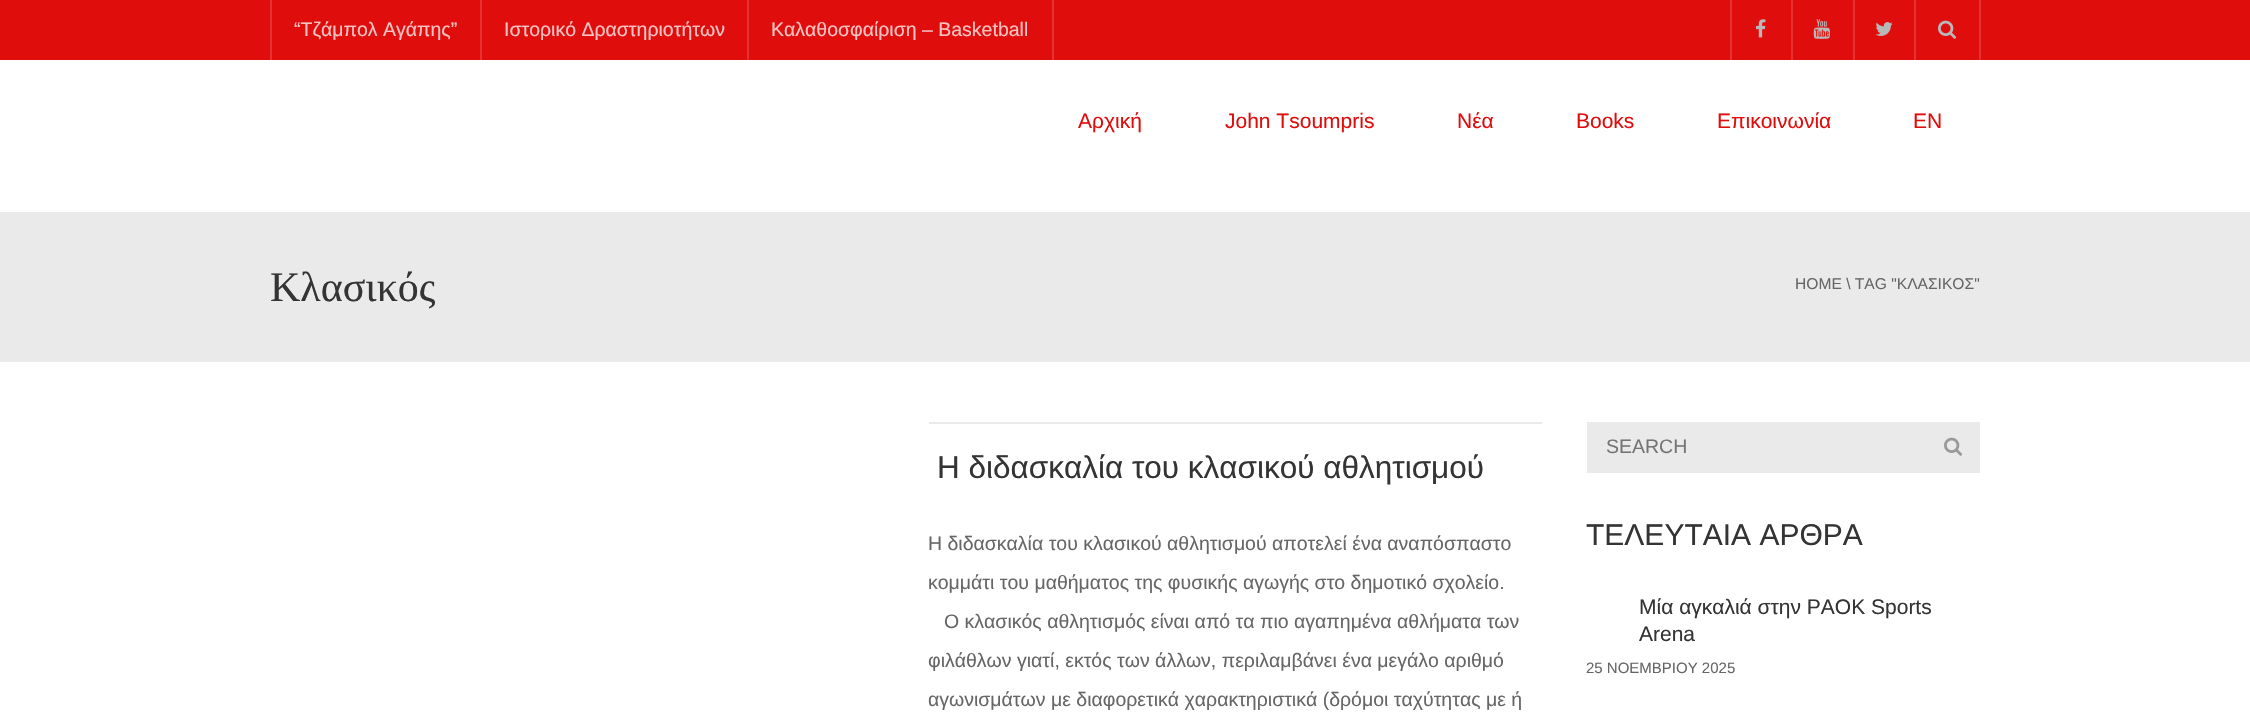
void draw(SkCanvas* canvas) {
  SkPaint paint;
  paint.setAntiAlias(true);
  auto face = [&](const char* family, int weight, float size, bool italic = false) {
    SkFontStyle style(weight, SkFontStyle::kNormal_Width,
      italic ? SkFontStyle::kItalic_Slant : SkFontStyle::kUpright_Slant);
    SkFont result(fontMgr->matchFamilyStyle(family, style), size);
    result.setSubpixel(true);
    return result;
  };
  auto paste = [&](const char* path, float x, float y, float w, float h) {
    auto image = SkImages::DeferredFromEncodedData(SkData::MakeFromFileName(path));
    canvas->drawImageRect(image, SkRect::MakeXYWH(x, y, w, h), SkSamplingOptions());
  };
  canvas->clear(0xffffffff);
  {
    const struct { float x, y, w, h; SkColor color; } items[] = {
      {0, 0, 2250, 60, 0xffe00d0d},
      {270, 0, 2, 60, 0xffe53131},
      {480, 0, 2, 60, 0xffe53131},
      {1052, 0, 2, 60, 0xffe53131},
      {747, 0, 2, 60, 0xffe53131},
      {1730, 0, 2, 60, 0xffe53131},
    };
    for (auto [x, y, w, h, color] : items) {
      paint.setColor(color);
      canvas->drawRect(SkRect::MakeXYWH(x, y, w, h), paint);
    }
  }
  paste("img/1.png", 1756, 19, 10, 19);
  canvas->drawRect(SkRect::MakeXYWH(1791, 0, 2, 60), paint);
  paste("img/2.png", 1813, 19, 17, 20);
  canvas->drawRect(SkRect::MakeXYWH(1853, 0, 2, 60), paint);
  paste("img/3.png", 1875, 22, 18, 14);
  canvas->drawRect(SkRect::MakeXYWH(1979, 0, 2, 60), paint);
  canvas->drawRect(SkRect::MakeXYWH(1914, 0, 2, 60), paint);
  paste("img/4.png", 1938, 20, 19, 19);
  {
    const struct { float x, y, w, h; SkColor color; } items[] = {
      {0, 212, 2250, 150, 0xffeaeaea},
      {929, 422, 613, 2, 0xffeaeaea},
      {1587, 422, 393, 51, 0xffeaeaea},
    };
    for (auto [x, y, w, h, color] : items) {
      paint.setColor(color);
      canvas->drawRect(SkRect::MakeXYWH(x, y, w, h), paint);
    }
  }
  paste("img/5.png", 1944, 437, 19, 19);
  auto f0 = face("Liberation Sans", 400, 19.5f);
  paint.setColor(0xfff7c3c3);
  {
    const struct { const char* s; float x, y; } items[] = {
      {"“Τζάμπολ Αγάπης”", 294, 36},
      {"Ιστορικό Δραστηριοτήτων", 504, 36},
      {"Καλαθοσφαίριση – Basketball", 771, 36},
    };
    for (auto [s, x, y] : items) {
      canvas->drawString(s, x, y, f0, paint);
    }
  }
  auto f1 = face("Liberation Sans", 400, 21);
  paint.setColor(0xffe00d0d);
  {
    const struct { const char* s; float x, y; } items[] = {
      {"Αρχική", 1078, 128},
      {"John Tsoumpris", 1225, 128},
      {"Νέα", 1457, 128},
      {"Books", 1576, 128},
      {"Επικοινωνία", 1717, 128},
      {"EN", 1913, 128},
    };
    for (auto [s, x, y] : items) {
      canvas->drawString(s, x, y, f1, paint);
    }
  }
  auto f2 = face("Liberation Serif", 400, 42);
  paint.setColor(0xff343434);
  canvas->drawString("Κλασικός", 270, 301, f2, paint);
  auto f3 = face("Liberation Sans", 400, 15.6f);
  paint.setColor(0xff666666);
  canvas->drawString("HOME \\ TAG \"ΚΛΑΣΙΚΟΣ\"", 1795, 289, f3, paint);
  auto f4 = face("Liberation Sans", 400, 31.5f);
  paint.setColor(0xff343434);
  canvas->drawString("Η διδασκαλία του κλασικού αθλητισμού", 937, 478, f4, paint);
  paint.setColor(0xff666666);
  {
    const struct { const char* s; float x, y; } items[] = {
      {"Η διδασκαλία του κλασικού αθλητισμού αποτελεί ένα αναπόσπαστο", 928, 550},
      {"κομμάτι του μαθήματος της φυσικής αγωγής στο δημοτικό σχολείο.", 928, 589},
      {"O κλασικός αθλητισμός είναι από τα πιο αγαπημένα αθλήματα των", 944, 628},
      {"φιλάθλων γιατί, εκτός των άλλων, περιλαμβάνει ένα μεγάλο αριθμό", 928, 667},
      {"αγωνισμάτων με διαφορετικά χαρακτηριστικά (δρόμοι ταχύτητας με ή", 928, 706},
    };
    for (auto [s, x, y] : items) {
      canvas->drawString(s, x, y, f0, paint);
    }
  }
  paint.setColor(0xff757575);
  canvas->drawString("SEARCH", 1606, 453, f0, paint);
  auto f5 = face("Liberation Sans", 400, 30);
  paint.setColor(0xff343434);
  canvas->drawString("ΤΕΛΕΥΤΑΙΑ ΑΡΘΡΑ", 1586, 545, f5, paint);
  canvas->drawString("Μία αγκαλιά στην PAOK Sports", 1639, 614, f1, paint);
  canvas->drawString("Arena", 1639, 641, f1, paint);
  auto f6 = face("Liberation Sans", 400, 15);
  paint.setColor(0xff666666);
  canvas->drawString("25 ΝΟΕΜΒΡΙΟΥ 2025", 1586, 673, f6, paint);
}
